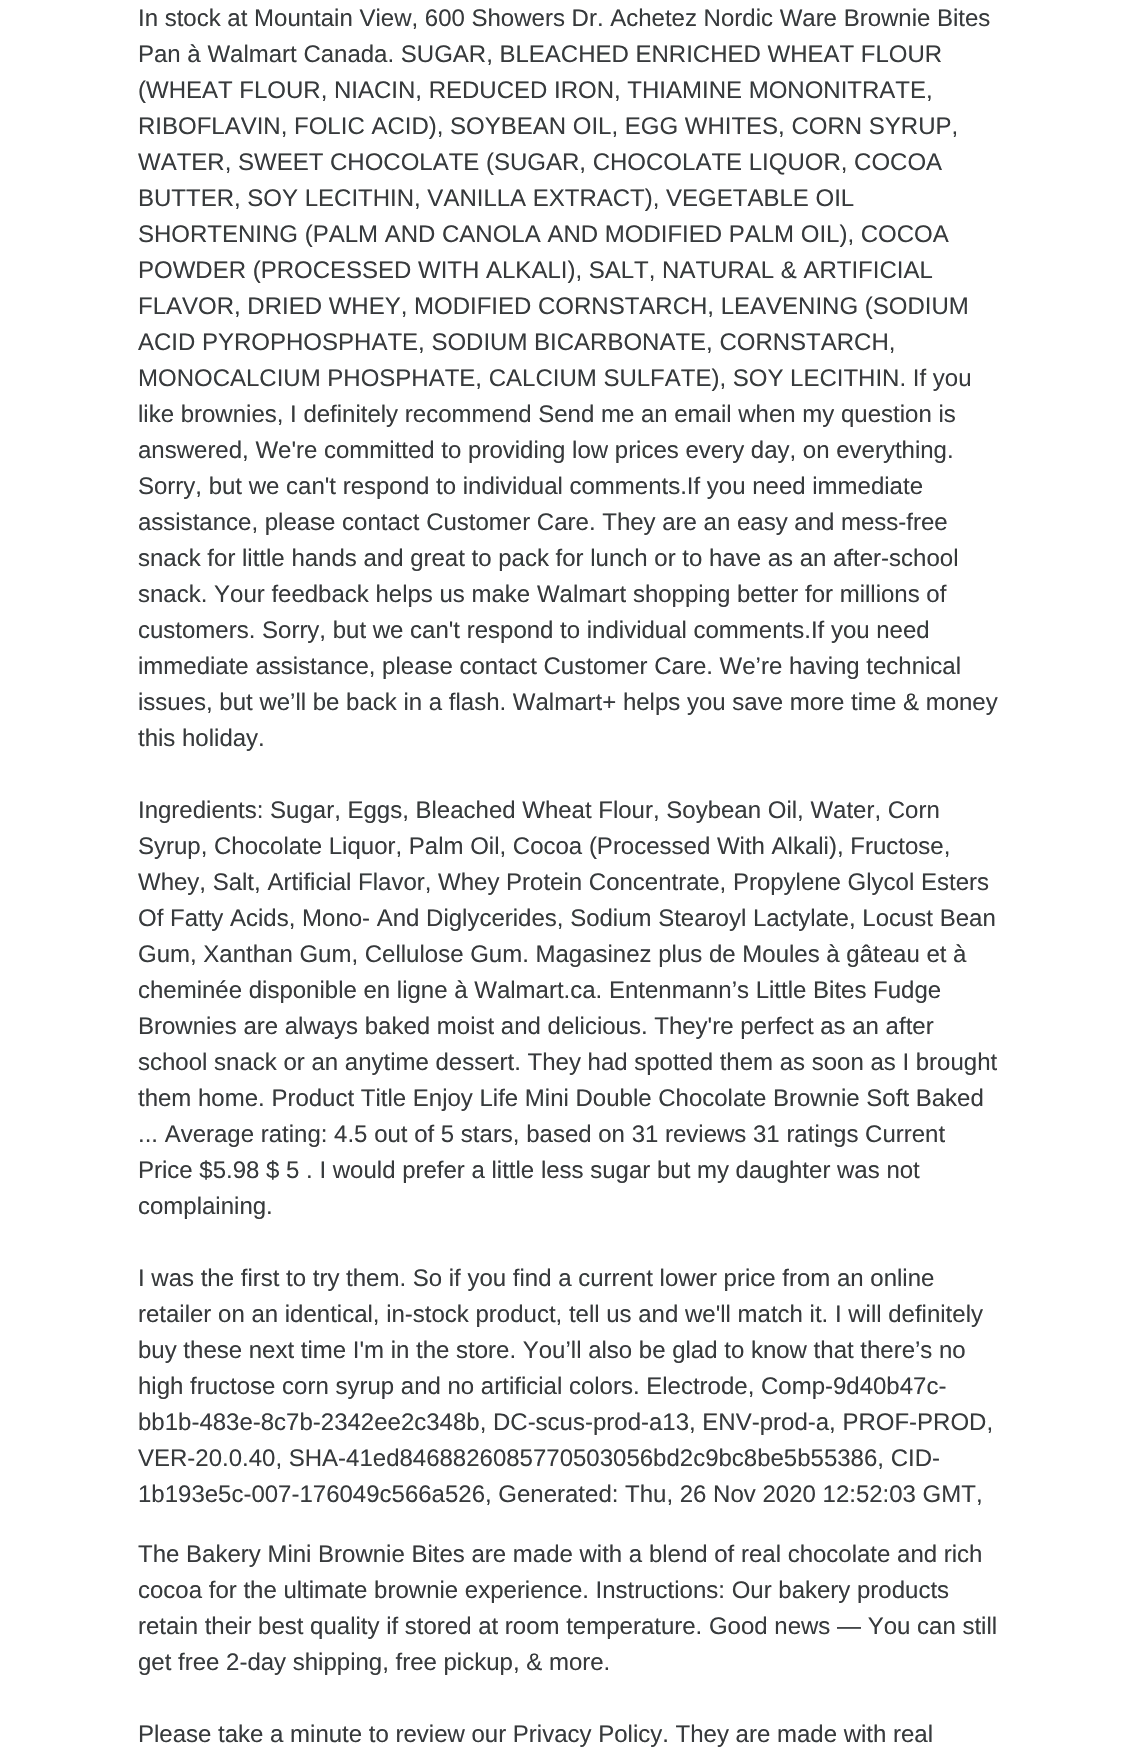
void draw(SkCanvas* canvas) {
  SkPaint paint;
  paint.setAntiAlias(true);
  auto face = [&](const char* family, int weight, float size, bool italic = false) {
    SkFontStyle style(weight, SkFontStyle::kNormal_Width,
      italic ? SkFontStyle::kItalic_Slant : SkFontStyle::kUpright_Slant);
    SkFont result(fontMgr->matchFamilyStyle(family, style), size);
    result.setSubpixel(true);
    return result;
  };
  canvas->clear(0xffffffff);
  auto f0 = face("Liberation Sans", 400, 24);
  paint.setColor(0xff373a3c);
  {
    const struct { const char* s; float x, y; } items[] = {
      {"In stock at Mountain View, 600 Showers Dr. Achetez Nordic Ware Brownie Bites", 138, 26},
      {"Pan à Walmart Canada. SUGAR, BLEACHED ENRICHED WHEAT FLOUR", 138, 62},
      {"(WHEAT FLOUR, NIACIN, REDUCED IRON, THIAMINE MONONITRATE,", 138, 98},
      {"RIBOFLAVIN, FOLIC ACID), SOYBEAN OIL, EGG WHITES, CORN SYRUP,", 138, 134},
      {"WATER, SWEET CHOCOLATE (SUGAR, CHOCOLATE LIQUOR, COCOA", 138, 170},
      {"BUTTER, SOY LECITHIN, VANILLA EXTRACT), VEGETABLE OIL", 138, 206},
      {"SHORTENING (PALM AND CANOLA AND MODIFIED PALM OIL), COCOA", 138, 242},
      {"POWDER (PROCESSED WITH ALKALI), SALT, NATURAL & ARTIFICIAL", 138, 278},
      {"FLAVOR, DRIED WHEY, MODIFIED CORNSTARCH, LEAVENING (SODIUM", 138, 314},
      {"ACID PYROPHOSPHATE, SODIUM BICARBONATE, CORNSTARCH,", 138, 350},
      {"MONOCALCIUM PHOSPHATE, CALCIUM SULFATE), SOY LECITHIN. If you", 138, 386},
      {"like brownies, I definitely recommend Send me an email when my question is", 138, 422},
      {"answered, We're committed to providing low prices every day, on everything.", 138, 458},
      {"Sorry, but we can't respond to individual comments.If you need immediate", 138, 494},
      {"assistance, please contact Customer Care. They are an easy and mess-free", 138, 530},
      {"snack for little hands and great to pack for lunch or to have as an after-school", 138, 566},
      {"snack. Your feedback helps us make Walmart shopping better for millions of", 138, 602},
      {"customers. Sorry, but we can't respond to individual comments.If you need", 138, 638},
      {"immediate assistance, please contact Customer Care. We’re having technical", 138, 674},
      {"issues, but we’ll be back in a flash. Walmart+ helps you save more time & money", 138, 710},
      {"this holiday.", 138, 746},
      {"Ingredients: Sugar, Eggs, Bleached Wheat Flour, Soybean Oil, Water, Corn", 138, 818},
      {"Syrup, Chocolate Liquor, Palm Oil, Cocoa (Processed With Alkali), Fructose,", 138, 854},
      {"Whey, Salt, Artificial Flavor, Whey Protein Concentrate, Propylene Glycol Esters", 138, 890},
      {"Of Fatty Acids, Mono- And Diglycerides, Sodium Stearoyl Lactylate, Locust Bean", 138, 926},
      {"Gum, Xanthan Gum, Cellulose Gum. Magasinez plus de Moules à gâteau et à", 138, 962},
      {"cheminée disponible en ligne à Walmart.ca. Entenmann’s Little Bites Fudge", 138, 998},
      {"Brownies are always baked moist and delicious. They're perfect as an after", 138, 1034},
      {"school snack or an anytime dessert. They had spotted them as soon as I brought", 138, 1070},
      {"them home. Product Title Enjoy Life Mini Double Chocolate Brownie Soft Baked", 138, 1106},
      {"... Average rating: 4.5 out of 5 stars, based on 31 reviews 31 ratings Current", 138, 1142},
      {"Price $5.98 $ 5 . I would prefer a little less sugar but my daughter was not", 138, 1178},
      {"complaining.", 138, 1214},
      {"I was the first to try them. So if you find a current lower price from an online", 138, 1286},
      {"retailer on an identical, in-stock product, tell us and we'll match it. I will definitely", 138, 1322},
      {"buy these next time I'm in the store. You’ll also be glad to know that there’s no", 138, 1358},
      {"high fructose corn syrup and no artificial colors. Electrode, Comp-9d40b47c-", 138, 1394},
      {"bb1b-483e-8c7b-2342ee2c348b, DC-scus-prod-a13, ENV-prod-a, PROF-PROD,", 138, 1430},
      {"VER-20.0.40, SHA-41ed8468826085770503056bd2c9bc8be5b55386, CID-", 138, 1466},
      {"1b193e5c-007-176049c566a526, Generated: Thu, 26 Nov 2020 12:52:03 GMT,", 138, 1502},
      {"The Bakery Mini Brownie Bites are made with a blend of real chocolate and rich", 138, 1562},
      {"cocoa for the ultimate brownie experience. Instructions: Our bakery products", 138, 1598},
      {"retain their best quality if stored at room temperature. Good news — You can still", 138, 1634},
      {"get free 2-day shipping, free pickup, & more.", 138, 1670},
      {"Please take a minute to review our Privacy Policy. They are made with real", 138, 1742},
    };
    for (auto [s, x, y] : items) {
      canvas->drawString(s, x, y, f0, paint);
    }
  }
}
